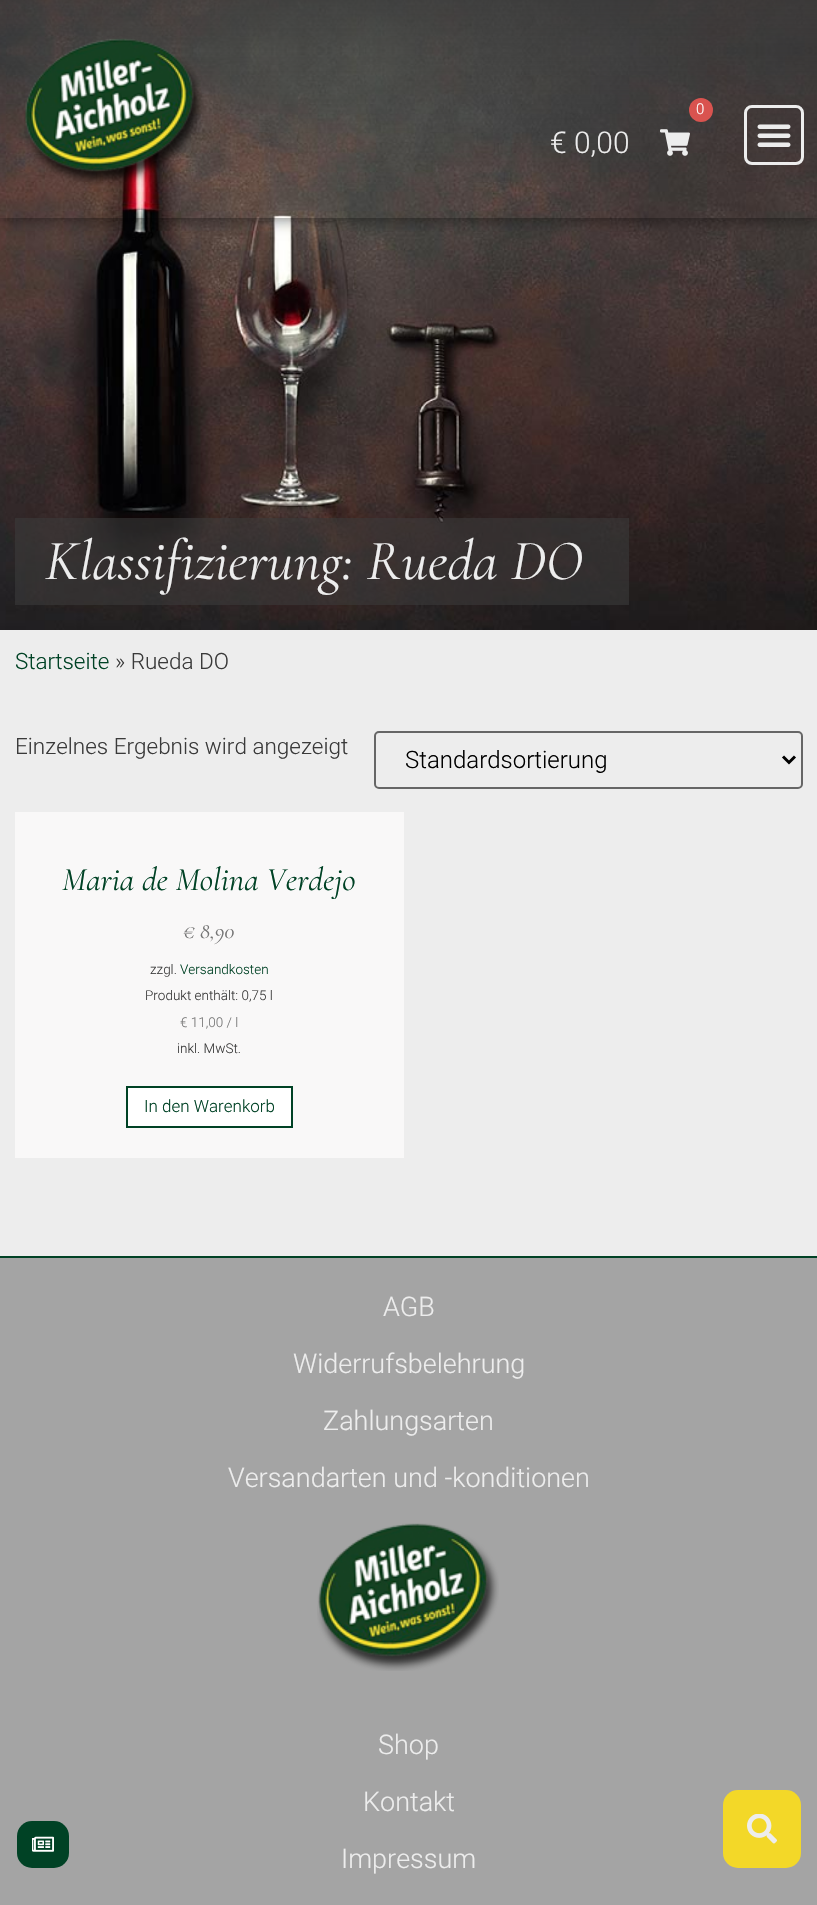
void draw(SkCanvas* canvas) {
  SkPaint paint;
  paint.setAntiAlias(true);
  auto face = [&](const char* family, int weight, float size, bool italic = false) {
    SkFontStyle style(weight, SkFontStyle::kNormal_Width,
      italic ? SkFontStyle::kItalic_Slant : SkFontStyle::kUpright_Slant);
    SkFont result(fontMgr->matchFamilyStyle(family, style), size);
    result.setSubpixel(true);
    return result;
  };
  auto paste = [&](const char* path, float x, float y, float w, float h) {
    auto image = SkImages::DeferredFromEncodedData(SkData::MakeFromFileName(path));
    canvas->drawImageRect(image, SkRect::MakeXYWH(x, y, w, h), SkSamplingOptions());
  };
  auto shape = [&](const char* data, bool evenOdd = false) {
    SkPath result = *SkParsePath::FromSVGString(data);
    if (evenOdd) result.setFillType(SkPathFillType::kEvenOdd);
    return result;
  };
  canvas->clear(0xffededed);
  paste("img/4.png", 0, 0, 817, 630);
  canvas->save();
  canvas->clipPath(shape("M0 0H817V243H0ZM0 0H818V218H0Z", true), true);
  paint.setColor(0x80000000);
  paint.setMaskFilter(SkMaskFilter::MakeBlur(kNormal_SkBlurStyle, 7.5f));
  canvas->drawRect(SkRect::MakeXYWH(-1, -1, 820, 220), paint);
  paint.setMaskFilter(nullptr);
  canvas->restore();
  paste("img/1.png", 24, 38, 180, 148);
  paint.setColor(0xffd9534f);
  canvas->drawCircle(701, 110, 12, paint);
  paste("img/2.png", 660, 129, 30, 27);
  paint.setStroke(true);
  paint.setStrokeWidth(3);
  paint.setColor(0xffededed);
  canvas->drawRoundRect(SkRect::MakeXYWH(745.5f, 106.5f, 57, 57), 6.5f, 6.5f, paint);
  paste("img/3.png", 757, 124, 34, 23);
  paint.setStroke(false);
  paint.setColor(0x8f3a3a3a);
  canvas->drawRect(SkRect::MakeXYWH(15, 518, 614, 87), paint);
  paint.setStroke(true);
  paint.setStrokeWidth(2);
  paint.setColor(0xff666666);
  canvas->drawRoundRect(SkRect::MakeXYWH(375, 732, 427, 56), 4, 4, paint);
  paint.setStrokeWidth(3);
  paint.setColor(0xff000000);
  canvas->drawPath(shape("M783 756.5L789 762.5L795 756.5"), paint);
  paint.setStroke(false);
  paint.setColor(0xfff9f8f8);
  canvas->drawRect(SkRect::MakeXYWH(15, 812, 389, 346), paint);
  paint.setColor(0xffffffff);
  canvas->drawRect(SkRect::MakeXYWH(127, 1087, 165, 40), paint);
  paint.setStroke(true);
  paint.setStrokeWidth(2);
  paint.setColor(0xff004225);
  canvas->drawRect(SkRect::MakeXYWH(127, 1087, 165, 40), paint);
  paint.setStroke(false);
  paint.setColor(0xffa4a4a4);
  canvas->drawRect(SkRect::MakeXYWH(0, 1258, 817, 647), paint);
  paint.setColor(0xff004225);
  canvas->drawRect(SkRect::MakeXYWH(0, 1256, 817, 2), paint);
  paste("img/5.png", 317, 1523, 182, 148);
  canvas->drawRoundRect(SkRect::MakeXYWH(17, 1821, 52, 47), 15, 15, paint);
  paste("img/6.png", 32, 1836, 22, 16);
  paint.setColor(0xfff3d828);
  canvas->drawRoundRect(SkRect::MakeXYWH(723, 1790, 78, 78), 15, 15, paint);
  paste("img/7.png", 747, 1814, 30, 30);
  auto f0 = face("Roboto", 300, 15);
  paint.setColor(0xffffffff);
  canvas->drawString("0", 696, 114, f0, paint);
  auto f1 = face("Roboto", 300, 30);
  paint.setColor(0xffededed);
  canvas->drawString("€ 0,00", 550, 153, f1, paint);
  auto f2 = face("Cormorant Garamond", 400, 57, true);
  canvas->drawString("Klassifizierung: Rueda DO", 45, 579, f2, paint);
  auto f3 = face("Roboto", 300, 22.5f);
  paint.setColor(0xff004225);
  canvas->drawString("Startseite", 15, 669, f3, paint);
  paint.setColor(0xff3a3a3a);
  canvas->drawString("» Rueda DO", 115, 669, f3, paint);
  canvas->drawString("Einzelnes Ergebnis wird angezeigt", 15, 754, f3, paint);
  auto f4 = face("Roboto", 300, 24);
  paint.setColor(0xff000000);
  canvas->drawString("Standardsortierung", 405, 768, f4, paint);
  auto f5 = face("Cormorant Garamond", 400, 33, true);
  paint.setColor(0xff004225);
  canvas->drawString("Maria de Molina Verdejo", 62, 890, f5, paint);
  auto f6 = face("Cormorant Garamond", 400, 22.5f, true);
  paint.setColor(0xff757575);
  canvas->drawString("€ 8,90", 183, 938, f6, paint);
  auto f7 = face("Roboto", 300, 13.5f);
  paint.setColor(0xff3a3a3a);
  canvas->drawString("zzgl.", 150, 974, f7, paint);
  paint.setColor(0xff004225);
  canvas->drawString("Versandkosten", 180, 974, f7, paint);
  paint.setColor(0xff3a3a3a);
  canvas->drawString("Produkt enthält: 0,75 l", 145, 1000, f7, paint);
  paint.setColor(0xff757575);
  canvas->drawString("€ 11,00 / l", 180, 1027, f7, paint);
  paint.setColor(0xff3a3a3a);
  canvas->drawString("inkl. MwSt.", 177, 1053, f7, paint);
  auto f8 = face("Roboto", 300, 17);
  paint.setColor(0xff004225);
  canvas->drawString("In den Warenkorb", 144, 1112, f8, paint);
  auto f9 = face("Roboto", 300, 27);
  paint.setColor(0xffededed);
  {
    const struct { const char* s; float x, y; } items[] = {
      {"AGB", 383, 1316},
      {"Widerrufsbelehrung", 293, 1373},
      {"Zahlungsarten", 323, 1430},
      {"Versandarten und -konditionen", 228, 1487},
      {"Shop", 378, 1754},
      {"Kontakt", 363, 1811},
      {"Impressum", 341, 1868},
    };
    for (auto [s, x, y] : items) {
      canvas->drawString(s, x, y, f9, paint);
    }
  }
}
